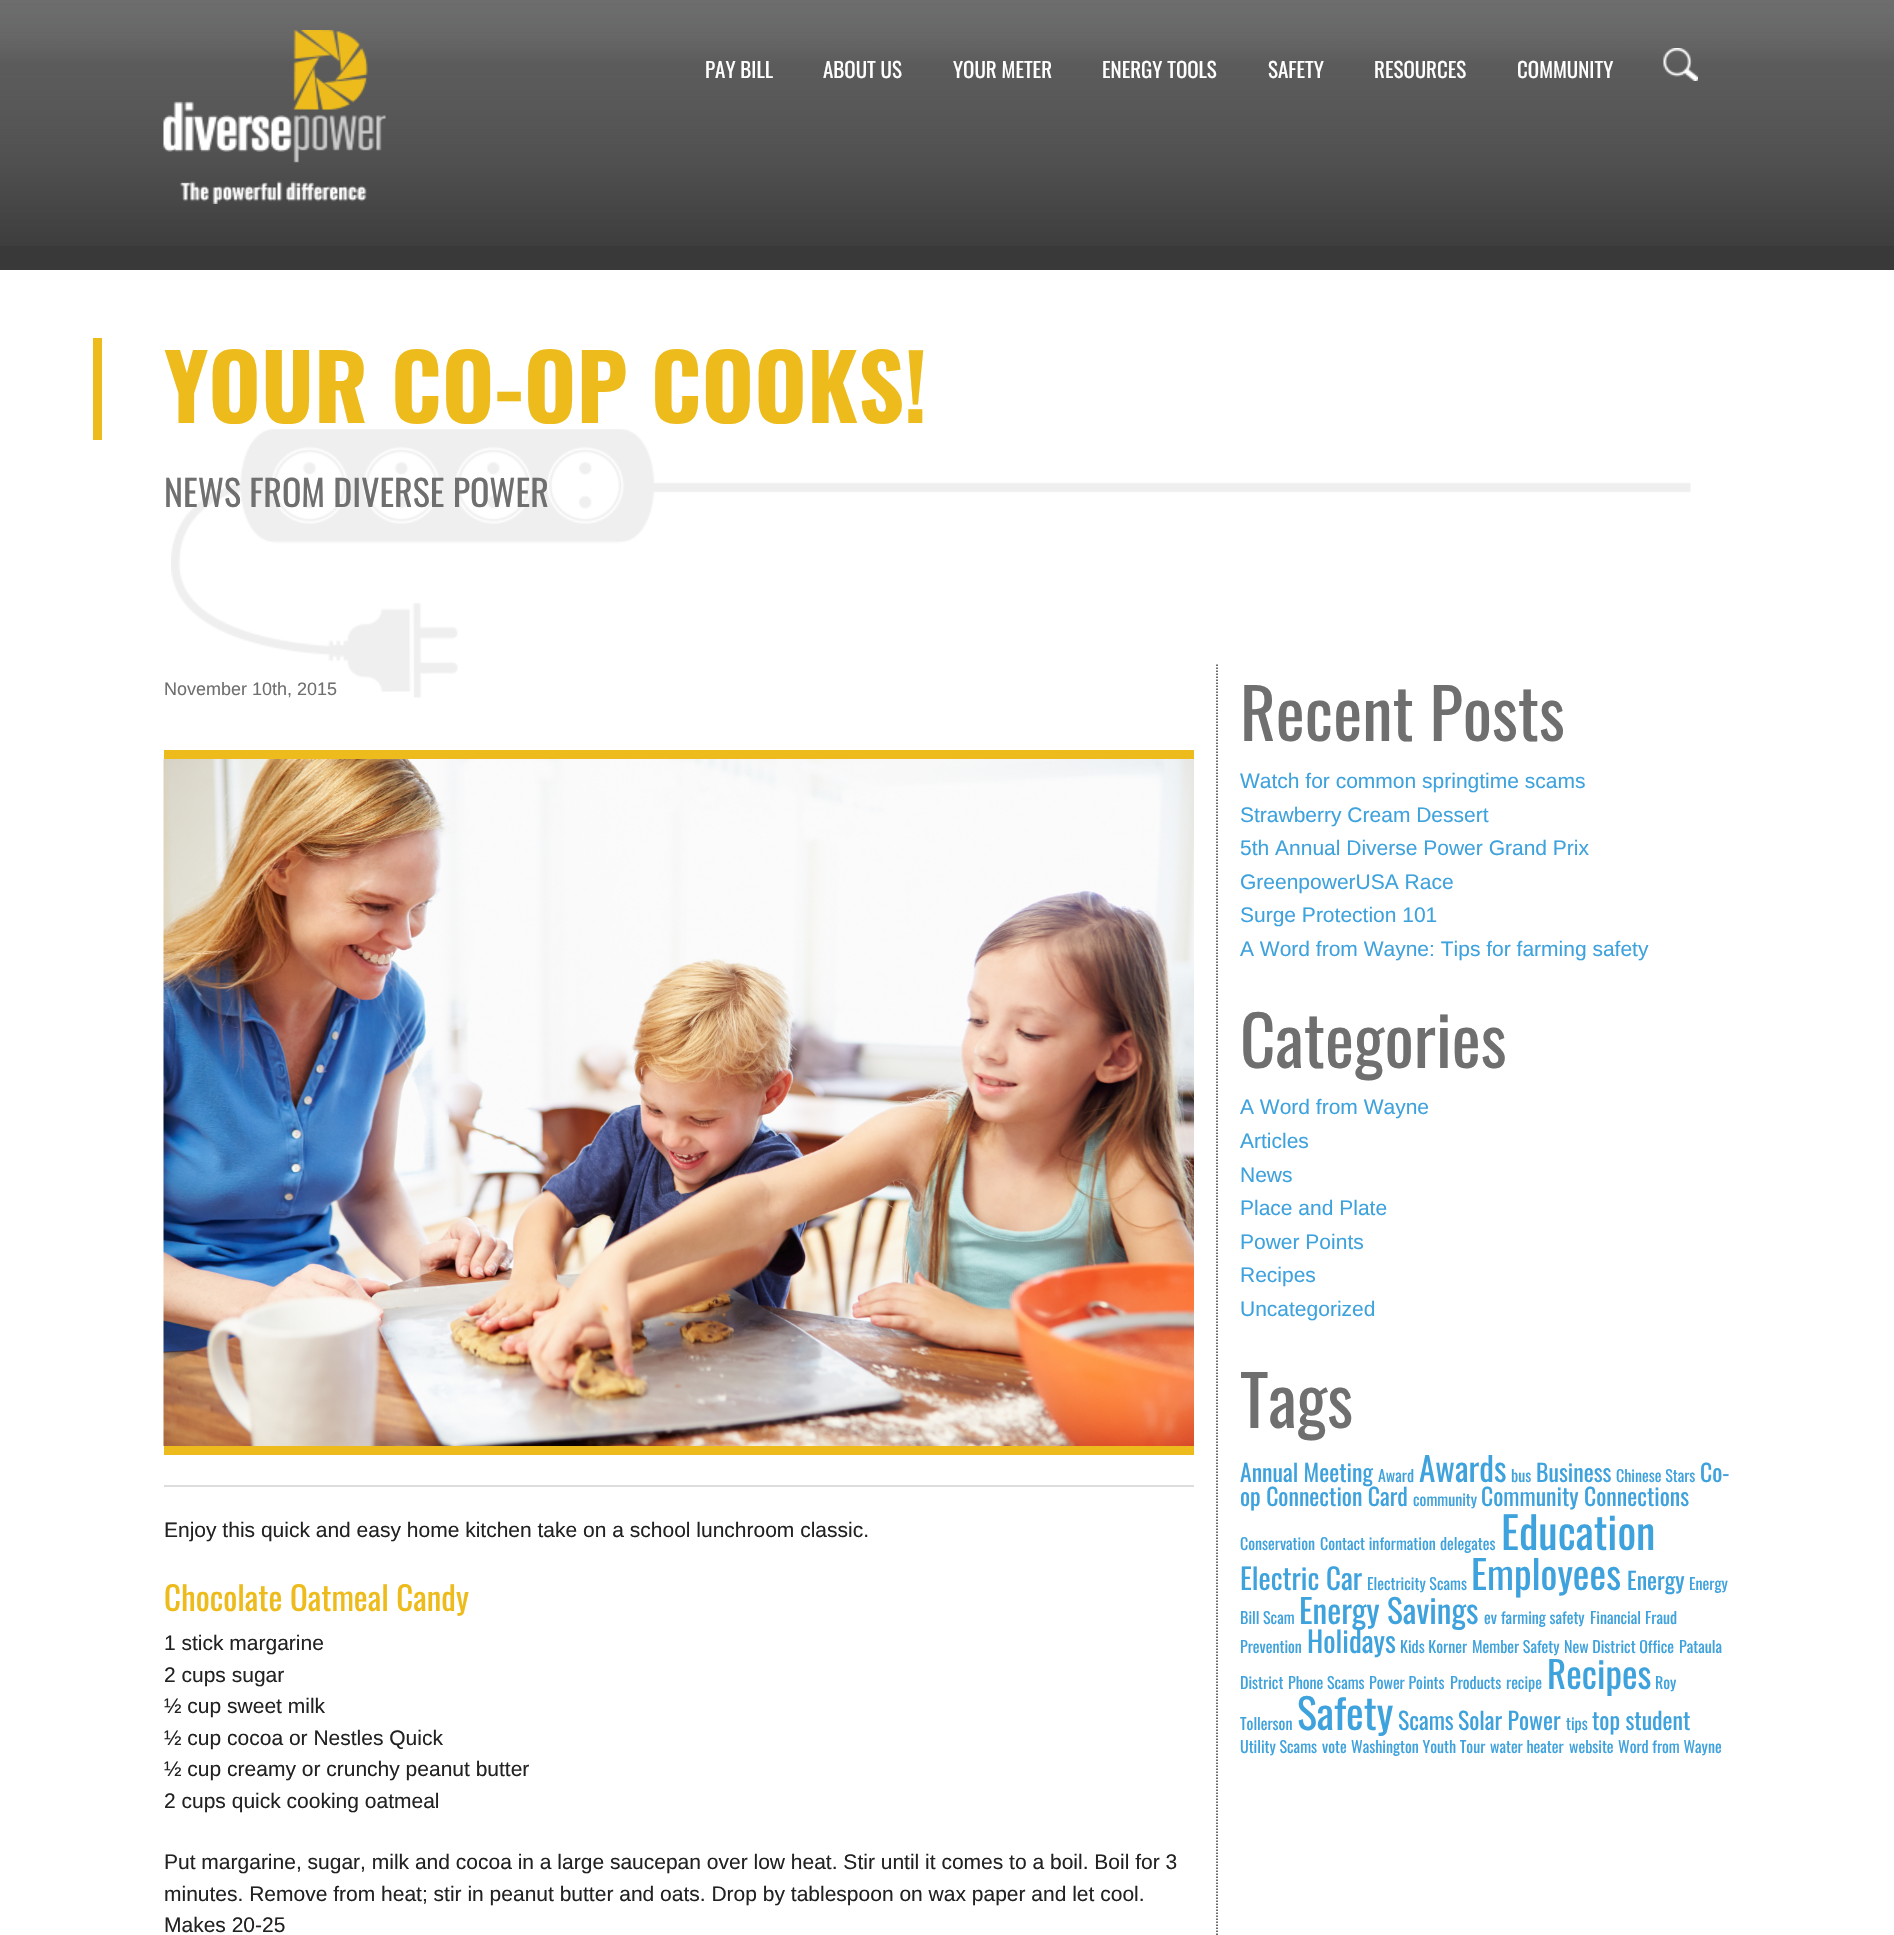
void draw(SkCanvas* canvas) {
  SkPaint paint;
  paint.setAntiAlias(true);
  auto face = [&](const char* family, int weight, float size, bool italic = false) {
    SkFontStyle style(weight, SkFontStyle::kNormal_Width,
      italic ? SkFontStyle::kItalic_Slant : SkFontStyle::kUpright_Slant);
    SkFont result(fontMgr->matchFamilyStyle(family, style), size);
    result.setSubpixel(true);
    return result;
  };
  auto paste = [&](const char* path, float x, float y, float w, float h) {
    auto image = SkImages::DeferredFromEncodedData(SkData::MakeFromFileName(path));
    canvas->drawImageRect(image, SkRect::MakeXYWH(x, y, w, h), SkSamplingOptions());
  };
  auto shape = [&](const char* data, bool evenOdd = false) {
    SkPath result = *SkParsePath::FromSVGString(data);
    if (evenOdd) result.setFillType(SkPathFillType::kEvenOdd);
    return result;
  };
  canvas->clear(0xffffffff);
  paint.setColor(0xff393939);
  canvas->drawRect(SkRect::MakeXYWH(0, 246, 1894, 24), paint);
  paste("img/1.png", 0, 0, 1894, 246);
  paste("img/2.png", 163, 30, 223, 174);
  paste("img/3.png", 1663, 48, 35, 33);
  paste("img/4.png", 171, 429, 1520, 269);
  {
    const struct { float x, y, w, h; SkColor color; } items[] = {
      {93, 338, 9, 102, 0xffedbc1c},
      {164, 750, 1030, 9, 0xffedbc1c},
      {164, 1446, 1030, 9, 0xffedbc1c},
    };
    for (auto [x, y, w, h, color] : items) {
      paint.setColor(color);
      canvas->drawRect(SkRect::MakeXYWH(x, y, w, h), paint);
    }
  }
  paste("img/5.png", 163, 759, 1031, 687);
  paint.setColor(0xffdddddd);
  canvas->drawRect(SkRect::MakeXYWH(164, 1485, 1030, 2), paint);
  paint.setStroke(true);
  paint.setStrokeWidth(1.5f);
  paint.setColor(0xff393939);
  paint.setPathEffect(SkDashPathEffect::Make({{1.5f, 1.5f}}, 0));
  canvas->drawPath(shape("M1217 664.5V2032.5"), paint);
  paint.setPathEffect(nullptr);
  auto f0 = face("Oswald", 400, 21);
  paint.setStroke(false);
  paint.setColor(0xffffffff);
  {
    const struct { const char* s; float x, y; } items[] = {
      {"PAY BILL", 705, 78},
      {"ABOUT US", 823, 78},
      {"YOUR METER", 953, 78},
      {"ENERGY TOOLS", 1102, 78},
      {"SAFETY", 1268, 78},
      {"RESOURCES", 1374, 78},
      {"COMMUNITY", 1517, 78},
    };
    for (auto [s, x, y] : items) {
      canvas->drawString(s, x, y, f0, paint);
    }
  }
  auto f1 = face("Oswald", 700, 90);
  paint.setColor(0xffedbc1c);
  canvas->drawString("YOUR CO-OP COOKS!", 164, 423, f1, paint);
  auto f2 = face("Oswald", 400, 36);
  paint.setColor(0xff6f6f6f);
  canvas->drawString("NEWS FROM DIVERSE POWER", 164, 507, f2, paint);
  auto f3 = face("Liberation Sans", 400, 18);
  canvas->drawString("November 10th, 2015", 164, 695, f3, paint);
  auto f4 = face("Liberation Sans", 400, 21);
  paint.setColor(0xff222222);
  canvas->drawString("Enjoy this quick and easy home kitchen take on a school lunchroom classic.", 164, 1537, f4, paint);
  auto f5 = face("Oswald", 400, 33);
  paint.setColor(0xffedbc1c);
  canvas->drawString("Chocolate Oatmeal Candy", 164, 1611, f5, paint);
  paint.setColor(0xff222222);
  {
    const struct { const char* s; float x, y; } items[] = {
      {"1 stick margarine", 164, 1650},
      {"2 cups sugar", 164, 1682},
      {"½ cup sweet milk", 164, 1713},
      {"½ cup cocoa or Nestles Quick", 164, 1745},
      {"½ cup creamy or crunchy peanut butter", 164, 1776},
      {"2 cups quick cooking oatmeal", 164, 1808},
      {"Put margarine, sugar, milk and cocoa in a large saucepan over low heat. Stir until it comes to a boil. Boil for 3", 164, 1869},
      {"minutes. Remove from heat; stir in peanut butter and oats. Drop by tablespoon on wax paper and let cool.", 164, 1901},
      {"Makes 20-25", 164, 1932},
    };
    for (auto [s, x, y] : items) {
      canvas->drawString(s, x, y, f4, paint);
    }
  }
  auto f6 = face("Oswald", 400, 69);
  paint.setColor(0xff6f6f6f);
  canvas->drawString("Recent Posts", 1240, 741, f6, paint);
  paint.setColor(0xff3ea2dd);
  {
    const struct { const char* s; float x, y; } items[] = {
      {"Watch for common springtime scams", 1240, 788},
      {"Strawberry Cream Dessert", 1240, 822},
      {"5th Annual Diverse Power Grand Prix", 1240, 855},
      {"GreenpowerUSA Race", 1240, 889},
      {"Surge Protection 101", 1240, 922},
      {"A Word from Wayne: Tips for farming safety", 1240, 956},
    };
    for (auto [s, x, y] : items) {
      canvas->drawString(s, x, y, f4, paint);
    }
  }
  paint.setColor(0xff6f6f6f);
  canvas->drawString("Categories", 1240, 1068, f6, paint);
  paint.setColor(0xff3ea2dd);
  {
    const struct { const char* s; float x, y; } items[] = {
      {"A Word from Wayne", 1240, 1114},
      {"Articles", 1240, 1148},
      {"News", 1240, 1182},
      {"Place and Plate", 1240, 1215},
      {"Power Points", 1240, 1249},
      {"Recipes", 1240, 1282},
      {"Uncategorized", 1240, 1316},
    };
    for (auto [s, x, y] : items) {
      canvas->drawString(s, x, y, f4, paint);
    }
  }
  paint.setColor(0xff6f6f6f);
  canvas->drawString("Tags", 1240, 1428, f6, paint);
  auto f7 = face("Oswald", 400, 23.75f);
  paint.setColor(0xff3ea2dd);
  canvas->drawString("Annual Meeting", 1240, 1482, f7, paint);
  auto f8 = face("Oswald", 400, 16);
  canvas->drawString("Award", 1378, 1482, f8, paint);
  auto f9 = face("Oswald", 400, 33.25f);
  canvas->drawString("Awards", 1419, 1482, f9, paint);
  canvas->drawString("bus", 1511, 1482, f8, paint);
  canvas->drawString("Business", 1536, 1482, f7, paint);
  canvas->drawString("Chinese Stars", 1616, 1482, f8, paint);
  canvas->drawString("Co-", 1700, 1482, f7, paint);
  canvas->drawString("op Connection Card", 1240, 1506, f7, paint);
  canvas->drawString("community", 1413, 1506, f8, paint);
  canvas->drawString("Community Connections", 1481, 1506, f7, paint);
  {
    const struct { const char* s; float x, y; } items[] = {
      {"Conservation", 1240, 1550},
      {"Contact information", 1320, 1550},
      {"delegates", 1440, 1550},
    };
    for (auto [s, x, y] : items) {
      canvas->drawString(s, x, y, f8, paint);
    }
  }
  auto f10 = face("Oswald", 400, 44);
  canvas->drawString("Education", 1501, 1550, f10, paint);
  auto f11 = face("Oswald", 400, 29);
  canvas->drawString("Electric Car", 1240, 1590, f11, paint);
  canvas->drawString("Electricity Scams", 1367, 1590, f8, paint);
  auto f12 = face("Oswald", 400, 39.5f);
  canvas->drawString("Employees", 1471, 1590, f12, paint);
  canvas->drawString("Energy", 1627, 1590, f7, paint);
  canvas->drawString("Energy", 1689, 1590, f8, paint);
  canvas->drawString("Bill Scam", 1240, 1624, f8, paint);
  canvas->drawString("Energy Savings", 1299, 1624, f9, paint);
  {
    const struct { const char* s; float x, y; } items[] = {
      {"ev", 1484, 1624},
      {"farming safety", 1501, 1624},
      {"Financial", 1590, 1624},
      {"Fraud", 1645, 1624},
      {"Prevention", 1240, 1653},
    };
    for (auto [s, x, y] : items) {
      canvas->drawString(s, x, y, f8, paint);
    }
  }
  canvas->drawString("Holidays", 1307, 1653, f11, paint);
  {
    const struct { const char* s; float x, y; } items[] = {
      {"Kids Korner", 1400, 1653},
      {"Member Safety", 1472, 1653},
      {"New District Office", 1564, 1653},
      {"Pataula", 1679, 1653},
      {"District", 1240, 1689},
      {"Phone Scams", 1288, 1689},
      {"Power Points", 1369, 1689},
      {"Products", 1450, 1689},
      {"recipe", 1506, 1689},
    };
    for (auto [s, x, y] : items) {
      canvas->drawString(s, x, y, f8, paint);
    }
  }
  auto f13 = face("Oswald", 400, 37);
  canvas->drawString("Recipes", 1547, 1689, f13, paint);
  canvas->drawString("Roy", 1655, 1689, f8, paint);
  canvas->drawString("Tollerson", 1240, 1730, f8, paint);
  auto f14 = face("Oswald", 400, 42);
  canvas->drawString("Safety", 1297, 1730, f14, paint);
  canvas->drawString("Scams", 1398, 1730, f7, paint);
  canvas->drawString("Solar Power", 1458, 1730, f7, paint);
  canvas->drawString("tips", 1566, 1730, f8, paint);
  canvas->drawString("top student", 1592, 1730, f7, paint);
  {
    const struct { const char* s; float x, y; } items[] = {
      {"Utility Scams", 1240, 1753},
      {"vote", 1322, 1753},
      {"Washington Youth Tour", 1351, 1753},
      {"water heater", 1490, 1753},
      {"website", 1569, 1753},
      {"Word from Wayne", 1618, 1753},
    };
    for (auto [s, x, y] : items) {
      canvas->drawString(s, x, y, f8, paint);
    }
  }
}
